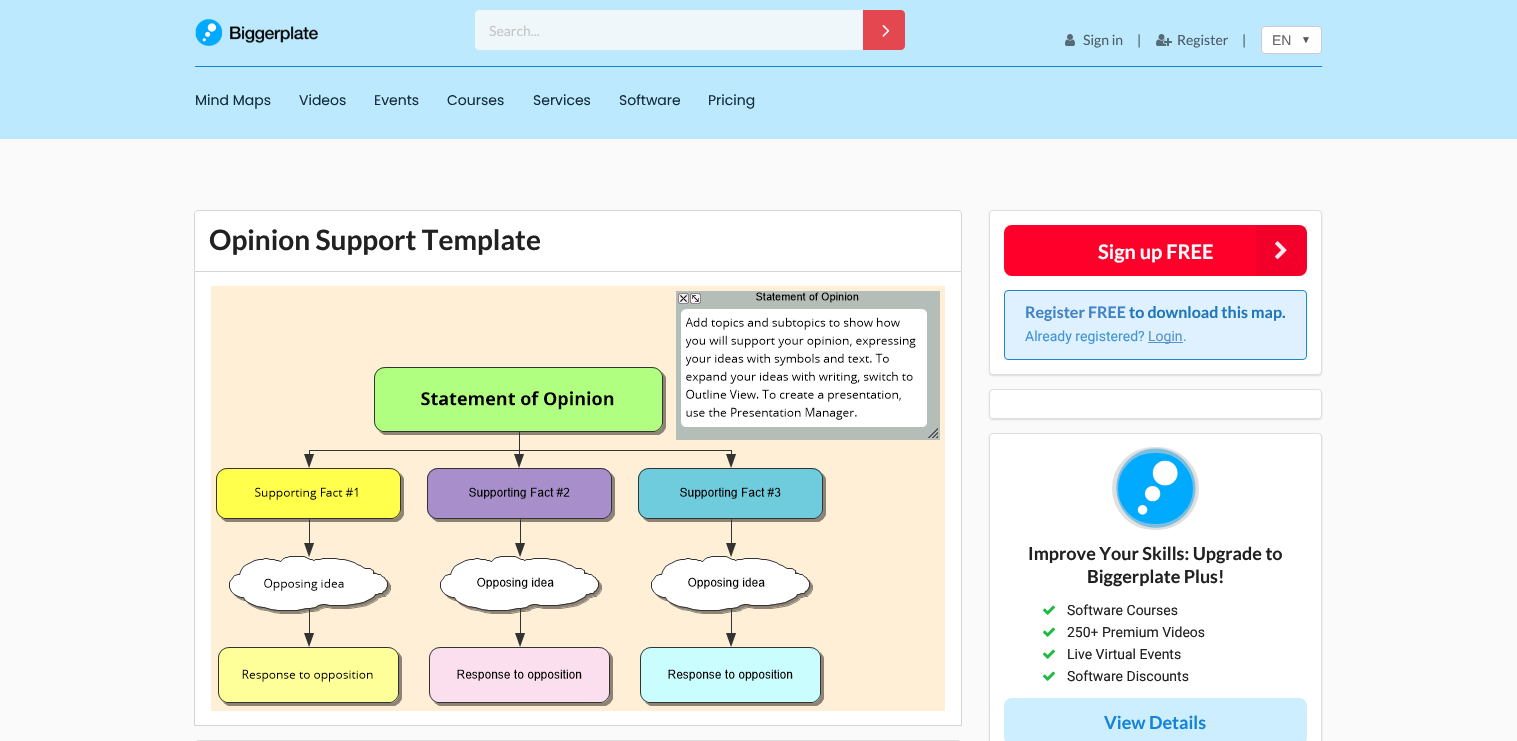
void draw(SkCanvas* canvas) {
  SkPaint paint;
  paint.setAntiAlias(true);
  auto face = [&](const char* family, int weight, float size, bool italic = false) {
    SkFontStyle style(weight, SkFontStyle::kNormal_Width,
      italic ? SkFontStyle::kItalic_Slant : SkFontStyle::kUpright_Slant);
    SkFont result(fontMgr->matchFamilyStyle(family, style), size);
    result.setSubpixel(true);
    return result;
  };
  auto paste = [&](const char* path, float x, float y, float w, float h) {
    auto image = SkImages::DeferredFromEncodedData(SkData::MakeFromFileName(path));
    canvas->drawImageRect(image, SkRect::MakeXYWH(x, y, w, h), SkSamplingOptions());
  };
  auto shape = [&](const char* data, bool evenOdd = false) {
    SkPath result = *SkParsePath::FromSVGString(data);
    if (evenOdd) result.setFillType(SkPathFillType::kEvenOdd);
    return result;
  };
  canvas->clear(0xfffafafa);
  paint.setColor(0xffbde9ff);
  canvas->drawRect(SkRect::MakeXYWH(0, 0, 1517, 139), paint);
  paste("img/1.png", 195, 19, 123, 27);
  paint.setColor(0xfff0f7fa);
  canvas->drawPath(shape("M479 10H863V50H479C477 50 475 48 475 46V14C475 12 477 10 479 10Z"), paint);
  paint.setColor(0xffe54750);
  canvas->drawPath(shape("M863 10H901C903 10 905 12 905 14V46C905 48 903 50 901 50H863Z"), paint);
  paste("img/2.png", 882, 25, 8, 12);
  paste("img/3.png", 1065, 34, 10, 12);
  paste("img/4.png", 1156, 34, 16, 12);
  paint.setColor(0xffffffff);
  canvas->drawRoundRect(SkRect::MakeXYWH(1261.5f, 26.5f, 60, 27), 3.5f, 3.5f, paint);
  paint.setStroke(true);
  paint.setStrokeWidth(1);
  paint.setColor(0xffcccccc);
  canvas->drawRoundRect(SkRect::MakeXYWH(1261.5f, 26.5f, 60, 27), 3.5f, 3.5f, paint);
  paint.setStroke(false);
  paint.setColor(0xff1582d5);
  canvas->drawRect(SkRect::MakeXYWH(195, 66, 1127, 1), paint);
  paint.setColor(0xffffffff);
  canvas->drawPath(shape("M198 210.5H958C960 210.5 961.5 212 961.5 214V271.5H194.5V214C194.5 212 196 210.5 198 210.5Z"), paint);
  paint.setStroke(true);
  paint.setColor(0xffd4d4d5);
  canvas->drawPath(shape("M198 210.5H958C960 210.5 961.5 212 961.5 214V271.5H194.5V214C194.5 212 196 210.5 198 210.5Z"), paint);
  paint.setStroke(false);
  {
    const struct { float x, y, w, h; SkColor color; } items[] = {
      {195, 272, 766, 453, 0xffffffff},
      {961, 272, 1, 454, 0xffd4d4d5},
      {194, 725, 768, 1, 0xffd4d4d5},
      {194, 272, 1, 454, 0xffd4d4d5},
    };
    for (auto [x, y, w, h, color] : items) {
      paint.setColor(color);
      canvas->drawRect(SkRect::MakeXYWH(x, y, w, h), paint);
    }
  }
  paste("img/5.png", 211, 286, 734, 425);
  paint.setStroke(true);
  paint.setColor(0xffdedede);
  canvas->drawRoundRect(SkRect::MakeXYWH(195.5f, 740.5f, 765, 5), 3.5f, 3.5f, paint);
  paint.setStroke(false);
  paint.setColor(0x26222426);
  paint.setMaskFilter(SkMaskFilter::MakeBlur(kNormal_SkBlurStyle, 1));
  canvas->drawRoundRect(SkRect::MakeXYWH(989, 211, 333, 165), 4, 4, paint);
  paint.setMaskFilter(nullptr);
  paint.setColor(0xffffffff);
  canvas->drawRoundRect(SkRect::MakeXYWH(989, 210, 333, 165), 4, 4, paint);
  paint.setStroke(true);
  paint.setColor(0x26222426);
  canvas->drawRoundRect(SkRect::MakeXYWH(989.5f, 210.5f, 332, 164), 3.5f, 3.5f, paint);
  paint.setStroke(false);
  paint.setColor(0xffff002b);
  canvas->drawRoundRect(SkRect::MakeXYWH(1004, 225, 303, 51), 8, 8, paint);
  paint.setColor(0x0d000000);
  canvas->drawRect(SkRect::MakeXYWH(1256, 225, 51, 51), paint);
  paste("img/6.png", 1275, 241, 12, 19);
  paint.setColor(0xffdff0ff);
  canvas->drawRoundRect(SkRect::MakeXYWH(1004.5f, 290.5f, 302, 69), 3.5f, 3.5f, paint);
  paint.setStroke(true);
  paint.setColor(0xff2185d0);
  canvas->drawRoundRect(SkRect::MakeXYWH(1004.5f, 290.5f, 302, 69), 3.5f, 3.5f, paint);
  paint.setStroke(false);
  paint.setColor(0xff5993cd);
  canvas->drawRect(SkRect::MakeXYWH(1148, 342, 35, 1), paint);
  paint.setColor(0x26222426);
  paint.setMaskFilter(SkMaskFilter::MakeBlur(kNormal_SkBlurStyle, 1));
  canvas->drawRoundRect(SkRect::MakeXYWH(989, 390, 333, 30), 4, 4, paint);
  paint.setMaskFilter(nullptr);
  paint.setColor(0xffffffff);
  canvas->drawRoundRect(SkRect::MakeXYWH(989, 389, 333, 30), 4, 4, paint);
  paint.setStroke(true);
  paint.setColor(0x26222426);
  canvas->drawRoundRect(SkRect::MakeXYWH(989.5f, 389.5f, 332, 29), 3.5f, 3.5f, paint);
  paint.setStroke(false);
  paint.setMaskFilter(SkMaskFilter::MakeBlur(kNormal_SkBlurStyle, 1));
  canvas->drawRoundRect(SkRect::MakeXYWH(989, 434, 333, 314), 4, 4, paint);
  paint.setMaskFilter(nullptr);
  paint.setColor(0xffffffff);
  canvas->drawRoundRect(SkRect::MakeXYWH(989, 433, 333, 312), 4, 4, paint);
  paint.setStroke(true);
  paint.setColor(0x26222426);
  canvas->drawRoundRect(SkRect::MakeXYWH(989.5f, 433.5f, 332, 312), 3.5f, 3.5f, paint);
  paste("img/7.png", 1115, 448, 81, 80);
  paint.setStrokeWidth(6);
  paint.setColor(0x99cccccc);
  canvas->drawRoundRect(SkRect::MakeXYWH(1115, 450, 81, 77), 38.5f, 38.5f, paint);
  paste("img/8.png", 1043, 605, 12, 10);
  paste("img/8.png", 1043, 627, 12, 10);
  paste("img/8.png", 1043, 649, 12, 10);
  paste("img/8.png", 1043, 671, 12, 10);
  paint.setStroke(false);
  paint.setColor(0xffcceeff);
  canvas->drawRoundRect(SkRect::MakeXYWH(1004, 698, 303, 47), 8, 8, paint);
  auto f0 = face("Lato", 400, 14);
  paint.setColor(0xffc5c6c7);
  canvas->drawString("Search...", 489, 36, f0, paint);
  paint.setColor(0xff4c5d66);
  {
    const struct { const char* s; float x, y; } items[] = {
      {"Sign in", 1083, 45},
      {"|", 1137, 45},
      {"Register", 1177, 45},
      {"|", 1242, 45},
    };
    for (auto [s, x, y] : items) {
      canvas->drawString(s, x, y, f0, paint);
    }
  }
  auto f1 = face("Liberation Sans", 400, 14);
  paint.setColor(0xff666666);
  canvas->drawString("EN", 1272, 45, f1, paint);
  auto f2 = face("Liberation Sans", 400, 10);
  paint.setColor(0xff555555);
  canvas->drawString("▼", 1301, 43, f2, paint);
  auto f3 = face("Poppins", 400, 14);
  paint.setColor(0xff132d39);
  {
    const struct { const char* s; float x, y; } items[] = {
      {"Mind Maps", 195, 105},
      {"Videos", 299, 105},
      {"Events", 374, 105},
      {"Courses", 447, 105},
      {"Services", 533, 105},
      {"Software", 619, 105},
      {"Pricing", 708, 105},
    };
    for (auto [s, x, y] : items) {
      canvas->drawString(s, x, y, f3, paint);
    }
  }
  auto f4 = face("Lato", 700, 28);
  paint.setColor(0xff212121);
  canvas->drawString("Opinion Support Template", 209, 250, f4, paint);
  auto f5 = face("Lato", 700, 20);
  paint.setColor(0xffffffff);
  canvas->drawString("Sign up FREE", 1098, 259, f5, paint);
  auto f6 = face("Lato", 700, 16);
  paint.setColor(0xff4183c4);
  canvas->drawString("Register FREE", 1025, 318, f6, paint);
  paint.setColor(0xff1e77ba);
  canvas->drawString("to download this map.", 1129, 318, f6, paint);
  auto f7 = face("Roboto", 400, 14);
  paint.setColor(0xff3e95d7);
  canvas->drawString("Already registered?", 1025, 341, f7, paint);
  paint.setColor(0xff5993cd);
  canvas->drawString("Login", 1148, 341, f7, paint);
  paint.setColor(0xff3e95d7);
  canvas->drawString(".", 1183, 341, f7, paint);
  auto f8 = face("Lato", 700, 18);
  paint.setColor(0xff212121);
  canvas->drawString("Improve Your Skills: Upgrade to", 1028, 560, f8, paint);
  canvas->drawString("Biggerplate Plus!", 1087, 583, f8, paint);
  {
    const struct { const char* s; float x, y; } items[] = {
      {"Software Courses", 1067, 615},
      {"250+ Premium Videos", 1067, 637},
      {"Live Virtual Events", 1067, 659},
      {"Software Discounts", 1067, 681},
    };
    for (auto [s, x, y] : items) {
      canvas->drawString(s, x, y, f7, paint);
    }
  }
  paint.setColor(0xff1583d8);
  canvas->drawString("View Details", 1104, 729, f8, paint);
}
